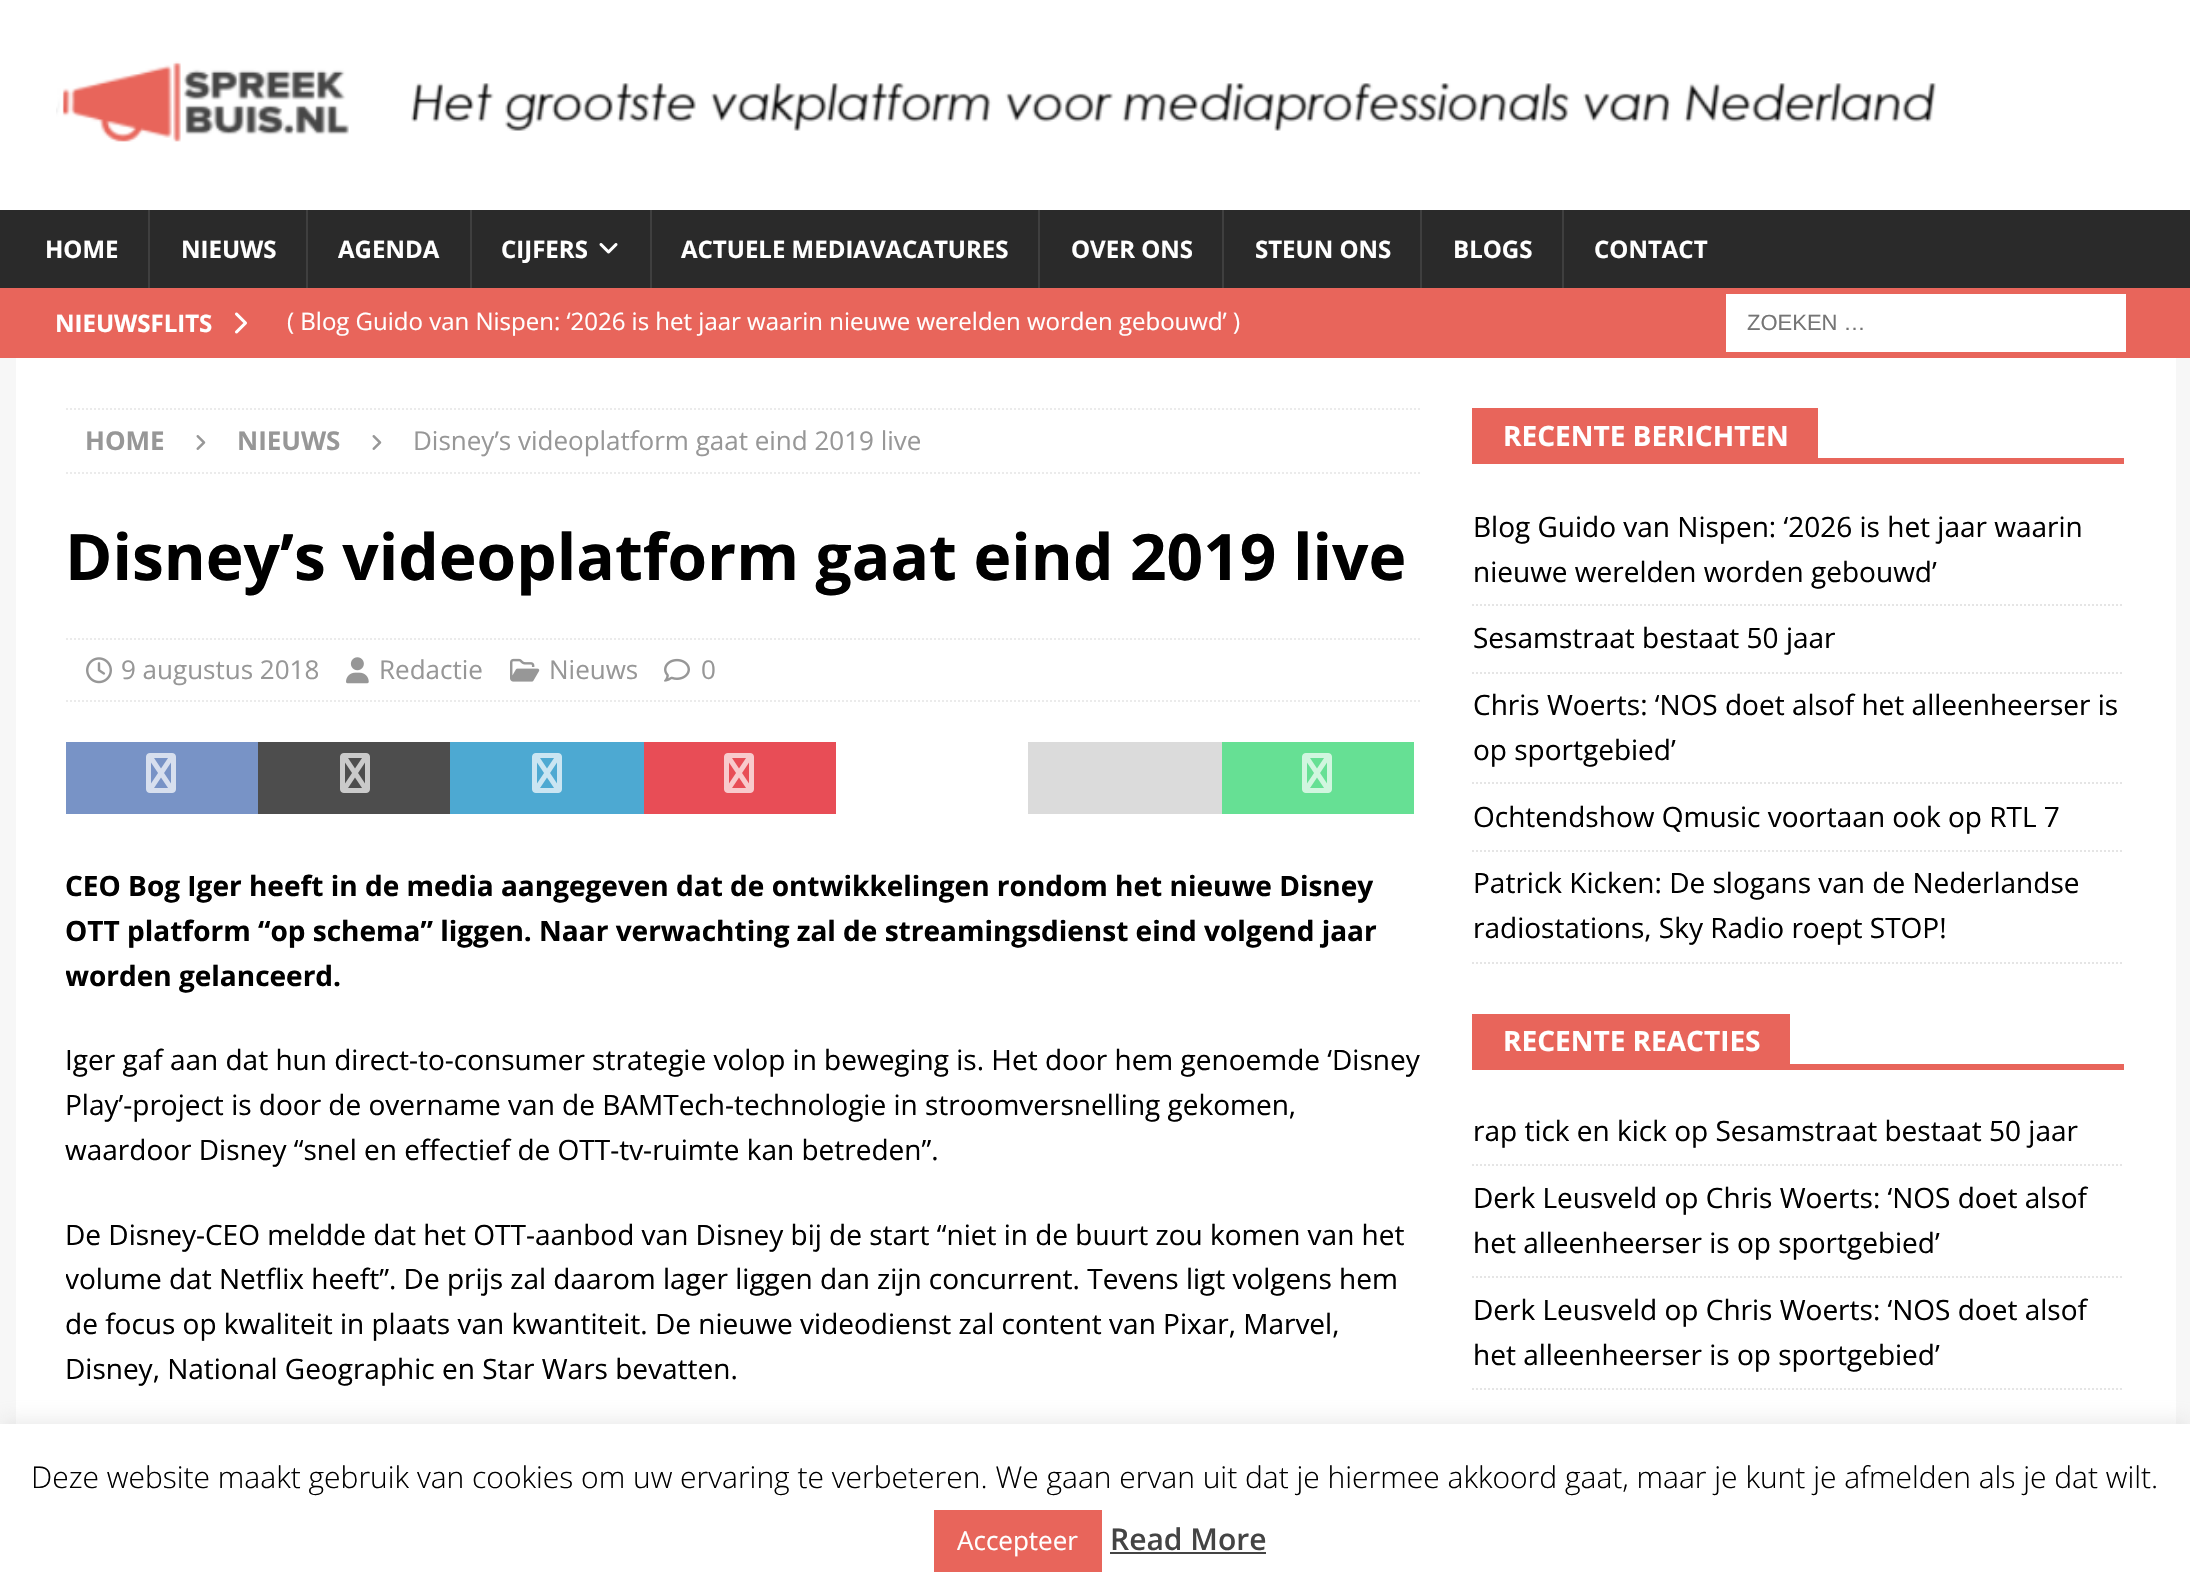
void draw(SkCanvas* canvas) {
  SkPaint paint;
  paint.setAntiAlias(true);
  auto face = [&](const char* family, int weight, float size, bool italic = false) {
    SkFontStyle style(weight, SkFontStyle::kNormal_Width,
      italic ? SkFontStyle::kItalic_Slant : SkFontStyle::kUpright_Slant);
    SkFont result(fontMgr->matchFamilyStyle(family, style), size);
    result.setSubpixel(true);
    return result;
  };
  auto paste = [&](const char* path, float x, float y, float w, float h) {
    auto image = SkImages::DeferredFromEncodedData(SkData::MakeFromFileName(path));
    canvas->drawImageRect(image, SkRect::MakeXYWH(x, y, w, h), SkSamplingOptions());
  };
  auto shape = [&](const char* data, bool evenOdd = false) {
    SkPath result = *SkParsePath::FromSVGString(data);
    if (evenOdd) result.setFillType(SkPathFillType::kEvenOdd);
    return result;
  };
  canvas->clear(0xfff7f7f7);
  paint.setColor(0xffffffff);
  canvas->drawRect(SkRect::MakeXYWH(0, 0, 2190, 210), paint);
  paste("img/1.png", 56, 61, 1880, 81);
  {
    const struct { float x, y, w, h; SkColor color; } items[] = {
      {0, 210, 2190, 78, 0xff2a2a2a},
      {148, 210, 2, 78, 0xff3f3f3f},
      {306, 210, 2, 78, 0xff3f3f3f},
      {470, 210, 2, 78, 0xff3f3f3f},
    };
    for (auto [x, y, w, h, color] : items) {
      paint.setColor(color);
      canvas->drawRect(SkRect::MakeXYWH(x, y, w, h), paint);
    }
  }
  paste("img/2.png", 599, 243, 19, 11);
  {
    const struct { float x, y, w, h; SkColor color; } items[] = {
      {650, 210, 2, 78, 0xff3f3f3f},
      {1038, 210, 2, 78, 0xff3f3f3f},
      {1222, 210, 2, 78, 0xff3f3f3f},
      {1420, 210, 2, 78, 0xff3f3f3f},
      {1562, 210, 2, 78, 0xff3f3f3f},
      {0, 288, 2190, 70, 0xffe8655b},
    };
    for (auto [x, y, w, h, color] : items) {
      paint.setColor(color);
      canvas->drawRect(SkRect::MakeXYWH(x, y, w, h), paint);
    }
  }
  paste("img/3.png", 235, 312, 12, 22);
  paint.setColor(0xffffffff);
  canvas->drawRect(SkRect::MakeXYWH(1726, 294, 400, 58), paint);
  canvas->drawRect(SkRect::MakeXYWH(16, 358, 2160, 1066), paint);
  paint.setStroke(true);
  paint.setStrokeWidth(2);
  paint.setColor(0xffebebeb);
  paint.setPathEffect(SkDashPathEffect::Make({{2, 2}}, 0));
  canvas->drawPath(shape("M66 409H1422"), paint);
  paint.setPathEffect(nullptr);
  paint.setPathEffect(SkDashPathEffect::Make({{2, 2}}, 0));
  canvas->drawPath(shape("M66 473H1422"), paint);
  paint.setPathEffect(nullptr);
  paste("img/4.png", 196, 435, 10, 15);
  paste("img/4.png", 372, 435, 10, 15);
  paint.setPathEffect(SkDashPathEffect::Make({{2, 2}}, 0));
  canvas->drawPath(shape("M66 639H1422"), paint);
  paint.setPathEffect(nullptr);
  paint.setPathEffect(SkDashPathEffect::Make({{2, 2}}, 0));
  canvas->drawPath(shape("M66 701H1422"), paint);
  paint.setPathEffect(nullptr);
  paste("img/5.png", 86, 657, 26, 27);
  paste("img/6.png", 346, 657, 23, 27);
  paste("img/7.png", 510, 658, 30, 24);
  paste("img/8.png", 664, 658, 26, 24);
  paint.setStroke(false);
  paint.setColor(0xff7893c6);
  canvas->drawRect(SkRect::MakeXYWH(66, 742, 192, 72), paint);
  paste("img/9.png", 146, 753, 30, 40);
  paint.setColor(0xff4d4d4d);
  canvas->drawRect(SkRect::MakeXYWH(258, 742, 192, 72), paint);
  paste("img/10.png", 340, 753, 30, 40);
  paint.setColor(0xff4da9d2);
  canvas->drawRect(SkRect::MakeXYWH(450, 742, 194, 72), paint);
  paste("img/11.png", 532, 753, 30, 40);
  paint.setColor(0xffe84d56);
  canvas->drawRect(SkRect::MakeXYWH(644, 742, 192, 72), paint);
  paste("img/12.png", 724, 753, 30, 40);
  paint.setColor(0xffdbdbdb);
  canvas->drawRect(SkRect::MakeXYWH(1028, 742, 194, 72), paint);
  paint.setColor(0xff66e094);
  canvas->drawRect(SkRect::MakeXYWH(1222, 742, 192, 72), paint);
  paste("img/13.png", 1302, 753, 30, 40);
  paint.setColor(0xffe8655b);
  canvas->drawRect(SkRect::MakeXYWH(1472, 458, 652, 6), paint);
  canvas->drawRect(SkRect::MakeXYWH(1472, 408, 346, 50), paint);
  paint.setStroke(true);
  paint.setColor(0xffe5e5e5);
  paint.setPathEffect(SkDashPathEffect::Make({{2, 2}}, 0));
  canvas->drawPath(shape("M1472 605H2124"), paint);
  paint.setPathEffect(nullptr);
  paint.setPathEffect(SkDashPathEffect::Make({{2, 2}}, 0));
  canvas->drawPath(shape("M1472 673H2124"), paint);
  paint.setPathEffect(nullptr);
  paint.setPathEffect(SkDashPathEffect::Make({{2, 2}}, 0));
  canvas->drawPath(shape("M1472 783H2124"), paint);
  paint.setPathEffect(nullptr);
  paint.setPathEffect(SkDashPathEffect::Make({{2, 2}}, 0));
  canvas->drawPath(shape("M1472 851H2124"), paint);
  paint.setPathEffect(nullptr);
  paint.setPathEffect(SkDashPathEffect::Make({{2, 2}}, 0));
  canvas->drawPath(shape("M1472 963H2124"), paint);
  paint.setPathEffect(nullptr);
  paint.setStroke(false);
  paint.setColor(0xffe8655b);
  canvas->drawRect(SkRect::MakeXYWH(1472, 1064, 652, 6), paint);
  canvas->drawRect(SkRect::MakeXYWH(1472, 1014, 318, 50), paint);
  paint.setStroke(true);
  paint.setColor(0xffe5e5e5);
  paint.setPathEffect(SkDashPathEffect::Make({{2, 2}}, 0));
  canvas->drawPath(shape("M1472 1165H2124"), paint);
  paint.setPathEffect(nullptr);
  paint.setPathEffect(SkDashPathEffect::Make({{2, 2}}, 0));
  canvas->drawPath(shape("M1472 1277H2124"), paint);
  paint.setPathEffect(nullptr);
  paint.setPathEffect(SkDashPathEffect::Make({{2, 2}}, 0));
  canvas->drawPath(shape("M1472 1389H2124"), paint);
  paint.setPathEffect(nullptr);
  paint.setStroke(false);
  paint.setColor(0x4dacabab);
  paint.setMaskFilter(SkMaskFilter::MakeBlur(kNormal_SkBlurStyle, 10));
  canvas->drawRect(SkRect::MakeXYWH(0, 1422, 2190, 172), paint);
  paint.setMaskFilter(nullptr);
  {
    const struct { float x, y, w, h; SkColor color; } items[] = {
      {0, 1424, 2190, 172, 0xffffffff},
      {934, 1510, 168, 62, 0xffe8655b},
      {1110, 1552, 156, 2, 0xff444444},
    };
    for (auto [x, y, w, h, color] : items) {
      paint.setColor(color);
      canvas->drawRect(SkRect::MakeXYWH(x, y, w, h), paint);
    }
  }
  auto f0 = face("Open Sans", 700, 24);
  paint.setColor(0xffffffff);
  {
    const struct { const char* s; float x, y; } items[] = {
      {"HOME", 45, 258},
      {"NIEUWS", 181, 258},
      {"AGENDA", 338, 258},
      {"CIJFERS", 501, 258},
      {"ACTUELE MEDIAVACATURES", 681, 258},
      {"OVER ONS", 1071, 258},
      {"STEUN ONS", 1255, 258},
      {"BLOGS", 1453, 258},
      {"CONTACT", 1594, 258},
      {"NIEUWSFLITS", 55, 332},
    };
    for (auto [s, x, y] : items) {
      canvas->drawString(s, x, y, f0, paint);
    }
  }
  auto f1 = face("Open Sans", 400, 24);
  canvas->drawString("( Blog Guido van Nispen: ‘2026 is het jaar waarin nieuwe werelden worden gebouwd’ )", 287, 330, f1, paint);
  auto f2 = face("Liberation Sans", 400, 22);
  paint.setColor(0xff757575);
  canvas->drawString("ZOEKEN …", 1747, 330, f2, paint);
  auto f3 = face("Open Sans", 700, 26);
  paint.setColor(0xff979797);
  canvas->drawString("HOME", 85, 450, f3, paint);
  canvas->drawString("NIEUWS", 237, 450, f3, paint);
  auto f4 = face("Open Sans", 400, 26);
  canvas->drawString("Disney’s videoplatform gaat eind 2019 live", 413, 450, f4, paint);
  auto f5 = face("Open Sans", 700, 64);
  paint.setColor(0xff000000);
  canvas->drawString("Disney’s videoplatform gaat eind 2019 live", 65, 580, f5, paint);
  paint.setColor(0xff979797);
  {
    const struct { const char* s; float x, y; } items[] = {
      {"9 augustus 2018", 121, 679},
      {"Redactie", 379, 679},
      {"Nieuws", 549, 679},
      {"0", 701, 679},
    };
    for (auto [s, x, y] : items) {
      canvas->drawString(s, x, y, f4, paint);
    }
  }
  auto f6 = face("Open Sans", 700, 28);
  paint.setColor(0xff000000);
  canvas->drawString("CEO Bog Iger heeft in de media aangegeven dat de ontwikkelingen rondom het nieuwe Disney", 65, 896, f6, paint);
  canvas->drawString("OTT platform “op schema” liggen. Naar verwachting zal de streamingsdienst eind volgend jaar", 65, 941, f6, paint);
  canvas->save();
  canvas->clipRect(SkRect::MakeXYWH(66, 408, 1356, 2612));
  canvas->drawString("worden gelanceerd.", 65, 986, f6, paint);
  canvas->restore();
  auto f7 = face("Open Sans", 400, 28);
  {
    const struct { const char* s; float x, y; } items[] = {
      {"Iger gaf aan dat hun direct-to-consumer strategie volop in beweging is. Het door hem genoemde ‘Disney", 65, 1070},
      {"Play’-project is door de overname van de BAMTech-technologie in stroomversnelling gekomen,", 65, 1115},
      {"waardoor Disney “snel en effectief de OTT-tv-ruimte kan betreden”.", 65, 1160},
      {"De Disney-CEO meldde dat het OTT-aanbod van Disney bij de start “niet in de buurt zou komen van het", 65, 1245},
    };
    for (auto [s, x, y] : items) {
      canvas->drawString(s, x, y, f7, paint);
    }
  }
  canvas->save();
  canvas->clipRect(SkRect::MakeXYWH(66, 408, 1356, 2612));
  canvas->drawString("volume dat Netflix heeft”. De prijs zal daarom lager liggen dan zijn concurrent. Tevens ligt volgens hem", 65, 1289, f7, paint);
  canvas->restore();
  canvas->drawString("de focus op kwaliteit in plaats van kwantiteit. De nieuwe videodienst zal content van Pixar, Marvel,", 65, 1334, f7, paint);
  canvas->drawString("Disney, National Geographic en Star Wars bevatten.", 65, 1379, f7, paint);
  paint.setColor(0xffffffff);
  canvas->drawString("RECENTE BERICHTEN", 1503, 446, f6, paint);
  paint.setColor(0xff000000);
  {
    const struct { const char* s; float x, y; } items[] = {
      {"Blog Guido van Nispen: ‘2026 is het jaar waarin", 1473, 537},
      {"nieuwe werelden worden gebouwd’", 1473, 582},
      {"Sesamstraat bestaat 50 jaar", 1473, 648},
      {"Chris Woerts: ‘NOS doet alsof het alleenheerser is", 1473, 715},
      {"op sportgebied’", 1473, 760},
      {"Ochtendshow Qmusic voortaan ook op RTL 7", 1473, 827},
      {"Patrick Kicken: De slogans van de Nederlandse", 1473, 893},
      {"radiostations, Sky Radio roept STOP!", 1473, 938},
    };
    for (auto [s, x, y] : items) {
      canvas->drawString(s, x, y, f7, paint);
    }
  }
  paint.setColor(0xffffffff);
  canvas->drawString("RECENTE REACTIES", 1503, 1051, f6, paint);
  paint.setColor(0xff000000);
  {
    const struct { const char* s; float x, y; } items[] = {
      {"rap tick en kick op Sesamstraat bestaat 50 jaar", 1473, 1141},
      {"Derk Leusveld op Chris Woerts: ‘NOS doet alsof", 1473, 1208},
      {"het alleenheerser is op sportgebied’", 1473, 1253},
      {"Derk Leusveld op Chris Woerts: ‘NOS doet alsof", 1473, 1320},
      {"het alleenheerser is op sportgebied’", 1473, 1365},
    };
    for (auto [s, x, y] : items) {
      canvas->drawString(s, x, y, f7, paint);
    }
  }
  auto f8 = face("Open Sans", 300, 30);
  canvas->drawString("Deze website maakt gebruik van cookies om uw ervaring te verbeteren. We gaan ervan uit dat je hiermee akkoord gaat, maar je kunt je afmelden als je dat wilt.", 31, 1488, f8, paint);
  paint.setColor(0xffffffff);
  canvas->drawString("Accepteer", 957, 1550, f4, paint);
  auto f9 = face("Open Sans", 600, 30);
  paint.setColor(0xff444444);
  canvas->drawString("Read More", 1110, 1550, f9, paint);
}
